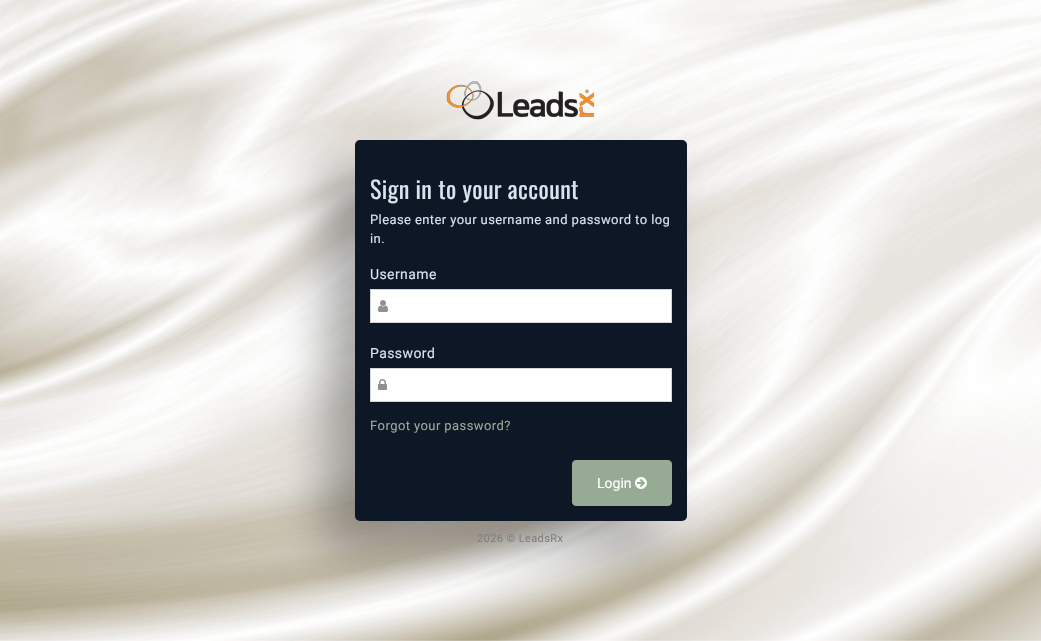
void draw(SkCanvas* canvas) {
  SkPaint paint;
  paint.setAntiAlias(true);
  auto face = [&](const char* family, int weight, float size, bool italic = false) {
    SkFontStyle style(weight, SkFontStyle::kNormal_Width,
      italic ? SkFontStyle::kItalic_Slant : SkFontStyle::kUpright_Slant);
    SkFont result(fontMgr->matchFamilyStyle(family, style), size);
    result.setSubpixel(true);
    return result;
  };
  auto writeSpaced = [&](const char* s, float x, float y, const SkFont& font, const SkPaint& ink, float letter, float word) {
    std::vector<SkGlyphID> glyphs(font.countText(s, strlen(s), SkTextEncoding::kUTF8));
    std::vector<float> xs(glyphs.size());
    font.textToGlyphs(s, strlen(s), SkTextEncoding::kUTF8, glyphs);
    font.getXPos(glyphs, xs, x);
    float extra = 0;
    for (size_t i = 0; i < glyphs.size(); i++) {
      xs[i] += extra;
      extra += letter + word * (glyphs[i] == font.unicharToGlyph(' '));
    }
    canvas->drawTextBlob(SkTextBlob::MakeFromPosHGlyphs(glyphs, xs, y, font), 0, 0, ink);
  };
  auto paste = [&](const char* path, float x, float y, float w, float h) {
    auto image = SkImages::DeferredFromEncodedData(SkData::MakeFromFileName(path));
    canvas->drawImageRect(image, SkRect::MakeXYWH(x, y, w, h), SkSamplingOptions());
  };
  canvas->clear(0xffffffff);
  paste("img/1.png", 0, 0, 1041, 641);
  paste("img/2.png", 446, 81, 149, 39);
  paint.setColor(0x52000000);
  paint.setMaskFilter(SkMaskFilter::MakeBlur(kNormal_SkBlurStyle, 25));
  canvas->drawRoundRect(SkRect::MakeXYWH(325, 170, 332, 381), 5, 5, paint);
  paint.setMaskFilter(nullptr);
  paint.setColor(0xff0e1726);
  canvas->drawRoundRect(SkRect::MakeXYWH(355, 140, 332, 381), 5, 5, paint);
  paint.setColor(0xffffffff);
  canvas->drawRect(SkRect::MakeXYWH(370.5f, 289.5f, 301, 33), paint);
  paint.setStroke(true);
  paint.setStrokeWidth(1);
  paint.setColor(0xffd5d5d5);
  canvas->drawRect(SkRect::MakeXYWH(370.5f, 289.5f, 301, 33), paint);
  paste("img/3.png", 378, 300, 10, 12);
  paint.setStroke(false);
  paint.setColor(0xffffffff);
  canvas->drawRect(SkRect::MakeXYWH(370.5f, 368.5f, 301, 33), paint);
  paint.setStroke(true);
  paint.setColor(0xffd5d5d5);
  canvas->drawRect(SkRect::MakeXYWH(370.5f, 368.5f, 301, 33), paint);
  paste("img/4.png", 378, 379, 9, 11);
  paint.setStroke(false);
  paint.setColor(0xff97aa94);
  canvas->drawRoundRect(SkRect::MakeXYWH(572.5f, 460.5f, 99, 45), 3.5f, 3.5f, paint);
  paint.setStroke(true);
  canvas->drawRoundRect(SkRect::MakeXYWH(572.5f, 460.5f, 99, 45), 3.5f, 3.5f, paint);
  paste("img/5.png", 635, 477, 12, 12);
  auto f0 = face("Oswald", 400, 24);
  paint.setStroke(false);
  paint.setColor(0xffdce2ec);
  writeSpaced("Sign in to your account", 370, 199, f0, paint, 0.4f, 0);
  auto f1 = face("Roboto", 400, 13);
  writeSpaced("Please enter your username and password to log", 370, 224, f1, paint, 0.4f, 0);
  writeSpaced("in.", 370, 243, f1, paint, 0.4f, 0);
  auto f2 = face("Roboto", 400, 14);
  writeSpaced("Username", 370, 279, f2, paint, 0.4f, 0);
  writeSpaced("Password", 370, 358, f2, paint, 0.4f, 0);
  paint.setColor(0xff97aa94);
  writeSpaced("Forgot your password?", 370, 430, f1, paint, 0.4f, 0);
  paint.setColor(0xffffffff);
  canvas->drawString("Login", 597, 488, f2, paint);
  auto f3 = face("Roboto", 400, 11);
  paint.setColor(0xff7f7f7f);
  writeSpaced("2026 © LeadsRx", 477, 542, f3, paint, 0.4f, 0);
}
